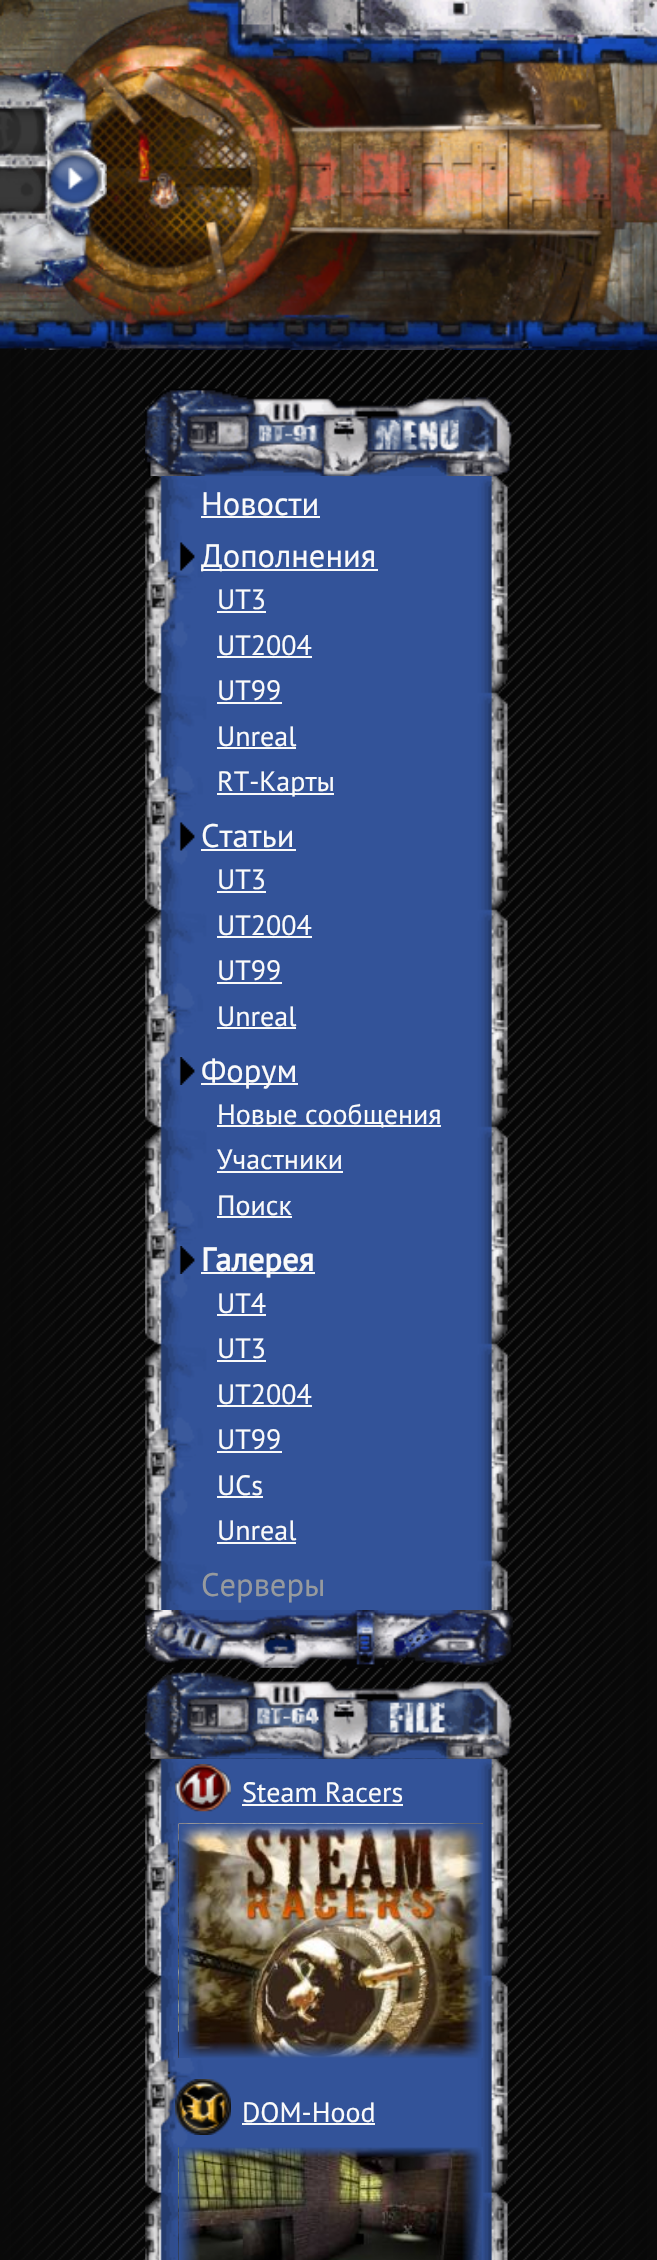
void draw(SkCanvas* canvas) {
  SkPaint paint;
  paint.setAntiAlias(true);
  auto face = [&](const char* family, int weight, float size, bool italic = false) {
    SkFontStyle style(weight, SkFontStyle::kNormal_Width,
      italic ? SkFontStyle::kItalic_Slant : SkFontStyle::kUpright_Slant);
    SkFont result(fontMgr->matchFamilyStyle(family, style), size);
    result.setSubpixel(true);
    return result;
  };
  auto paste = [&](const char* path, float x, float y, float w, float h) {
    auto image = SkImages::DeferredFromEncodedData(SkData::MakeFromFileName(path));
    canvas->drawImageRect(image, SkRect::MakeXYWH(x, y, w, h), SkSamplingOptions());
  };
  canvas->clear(0xffffffff);
  paste("img/1.png", 0, 50, 657, 2210);
  paste("img/2.png", 0, 0, 657, 328);
  paste("img/3.png", 0, 0, 657, 350);
  paste("img/4.png", 0, 70, 107, 220);
  paste("img/5.png", 52, 156, 45, 34);
  paste("img/6.png", 145, 476, 363, 1134);
  paste("img/7.png", 145, 388, 367, 88);
  paint.setColor(0xfffafafa);
  canvas->drawRect(SkRect::MakeXYWH(201, 516, 119, 2), paint);
  paste("img/8.png", 179, 542, 16, 29);
  {
    const struct { float x, y, w, h; SkColor color; } items[] = {
      {201, 569, 177, 2, 0xfffafafa},
      {217, 611, 49, 2, 0xfffafafa},
      {217, 656, 95, 2, 0xfffafafa},
      {217, 702, 65, 2, 0xfffafafa},
      {217, 747, 79, 2, 0xfffafafa},
      {217, 793, 117, 2, 0xfffafafa},
    };
    for (auto [x, y, w, h, color] : items) {
      paint.setColor(color);
      canvas->drawRect(SkRect::MakeXYWH(x, y, w, h), paint);
    }
  }
  paste("img/9.png", 179, 822, 16, 29);
  {
    const struct { float x, y, w, h; SkColor color; } items[] = {
      {201, 849, 95, 2, 0xfffafafa},
      {217, 891, 49, 2, 0xfffafafa},
      {217, 936, 95, 2, 0xfffafafa},
      {217, 982, 65, 2, 0xfffafafa},
      {217, 1027, 79, 2, 0xfffafafa},
    };
    for (auto [x, y, w, h, color] : items) {
      paint.setColor(color);
      canvas->drawRect(SkRect::MakeXYWH(x, y, w, h), paint);
    }
  }
  paste("img/10.png", 179, 1057, 16, 28);
  {
    const struct { float x, y, w, h; SkColor color; } items[] = {
      {201, 1083, 97, 2, 0xfffafafa},
      {217, 1125, 224, 2, 0xfffafafa},
      {217, 1171, 126, 2, 0xfffafafa},
      {217, 1216, 75, 2, 0xfffafafa},
    };
    for (auto [x, y, w, h, color] : items) {
      paint.setColor(color);
      canvas->drawRect(SkRect::MakeXYWH(x, y, w, h), paint);
    }
  }
  paste("img/11.png", 179, 1246, 16, 28);
  {
    const struct { float x, y, w, h; SkColor color; } items[] = {
      {201, 1272, 114, 2, 0xfffafafa},
      {217, 1314, 49, 2, 0xfffafafa},
      {217, 1360, 49, 2, 0xfffafafa},
      {217, 1405, 95, 2, 0xfffafafa},
      {217, 1451, 65, 2, 0xfffafafa},
      {217, 1496, 46, 2, 0xfffafafa},
      {217, 1542, 79, 2, 0xfffafafa},
    };
    for (auto [x, y, w, h, color] : items) {
      paint.setColor(color);
      canvas->drawRect(SkRect::MakeXYWH(x, y, w, h), paint);
    }
  }
  paste("img/12.png", 145, 1610, 368, 58);
  paste("img/13.png", 145, 1758, 363, 502);
  paste("img/14.png", 145, 1672, 367, 87);
  paste("img/15.png", 175, 1764, 56, 48);
  canvas->drawRect(SkRect::MakeXYWH(242, 1804, 161, 2), paint);
  paste("img/16.png", 178, 1823, 305, 235);
  paste("img/17.png", 175, 2079, 56, 56);
  canvas->drawRect(SkRect::MakeXYWH(242, 2123, 133, 2), paint);
  paste("img/18.png", 178, 2147, 305, 113);
  {
    const SkColor colors[] = {0xff315195, 0x00315195, 0x00315195, 0xff315195};
    const float stops[] = {0, 0.07f, 0.93f, 1};
    const SkPoint ends[] = {{331, 2147}, {331, 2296}};
    paint.setShader(SkGradientShader::MakeLinear(ends, colors, stops, 4, SkTileMode::kClamp));
    paint.setAlpha(255);
  }
  canvas->drawRect(SkRect::MakeXYWH(179, 2147, 304, 10), paint);
  {
    const SkColor colors[] = {0xff315195, 0x00315195, 0x00315195, 0xff315195};
    const float stops[] = {0, 0.07f, 0.93f, 1};
    const SkPoint ends[] = {{179, 2222}, {483, 2222}};
    paint.setShader(SkGradientShader::MakeLinear(ends, colors, stops, 4, SkTileMode::kClamp));
    paint.setAlpha(255);
  }
  canvas->drawRect(SkRect::MakeXYWH(179, 2147, 304, 113), paint);
  auto f0 = face("PT Sans", 400, 32.5f);
  paint.setShader(nullptr);
  paint.setColor(0xfffafafa);
  canvas->drawString("Новости", 201, 515, f0, paint);
  canvas->drawString("Дополнения", 201, 567, f0, paint);
  auto f1 = face("PT Sans", 400, 28);
  {
    const struct { const char* s; float x, y; } items[] = {
      {"UT3", 217, 609},
      {"UT2004", 217, 655},
      {"UT99", 217, 700},
      {"Unreal", 217, 746},
      {"RT-Карты", 217, 791},
    };
    for (auto [s, x, y] : items) {
      canvas->drawString(s, x, y, f1, paint);
    }
  }
  canvas->drawString("Статьи", 201, 847, f0, paint);
  {
    const struct { const char* s; float x, y; } items[] = {
      {"UT3", 217, 889},
      {"UT2004", 217, 935},
      {"UT99", 217, 980},
      {"Unreal", 217, 1026},
    };
    for (auto [s, x, y] : items) {
      canvas->drawString(s, x, y, f1, paint);
    }
  }
  canvas->drawString("Форум", 201, 1082, f0, paint);
  {
    const struct { const char* s; float x, y; } items[] = {
      {"Новые сообщения", 217, 1124},
      {"Участники", 217, 1169},
      {"Поиск", 217, 1215},
    };
    for (auto [s, x, y] : items) {
      canvas->drawString(s, x, y, f1, paint);
    }
  }
  auto f2 = face("PT Sans", 700, 32.5f);
  canvas->drawString("Галерея", 201, 1271, f2, paint);
  {
    const struct { const char* s; float x, y; } items[] = {
      {"UT4", 217, 1313},
      {"UT3", 217, 1358},
      {"UT2004", 217, 1404},
      {"UT99", 217, 1449},
      {"UCs", 217, 1495},
      {"Unreal", 217, 1540},
    };
    for (auto [s, x, y] : items) {
      canvas->drawString(s, x, y, f1, paint);
    }
  }
  paint.setColor(0xff969a9e);
  canvas->drawString("Серверы", 201, 1596, f0, paint);
  paint.setColor(0xfffafafa);
  canvas->drawString("Steam Racers", 242, 1802, f1, paint);
  canvas->drawString("DOM-Hood", 242, 2122, f1, paint);
}
